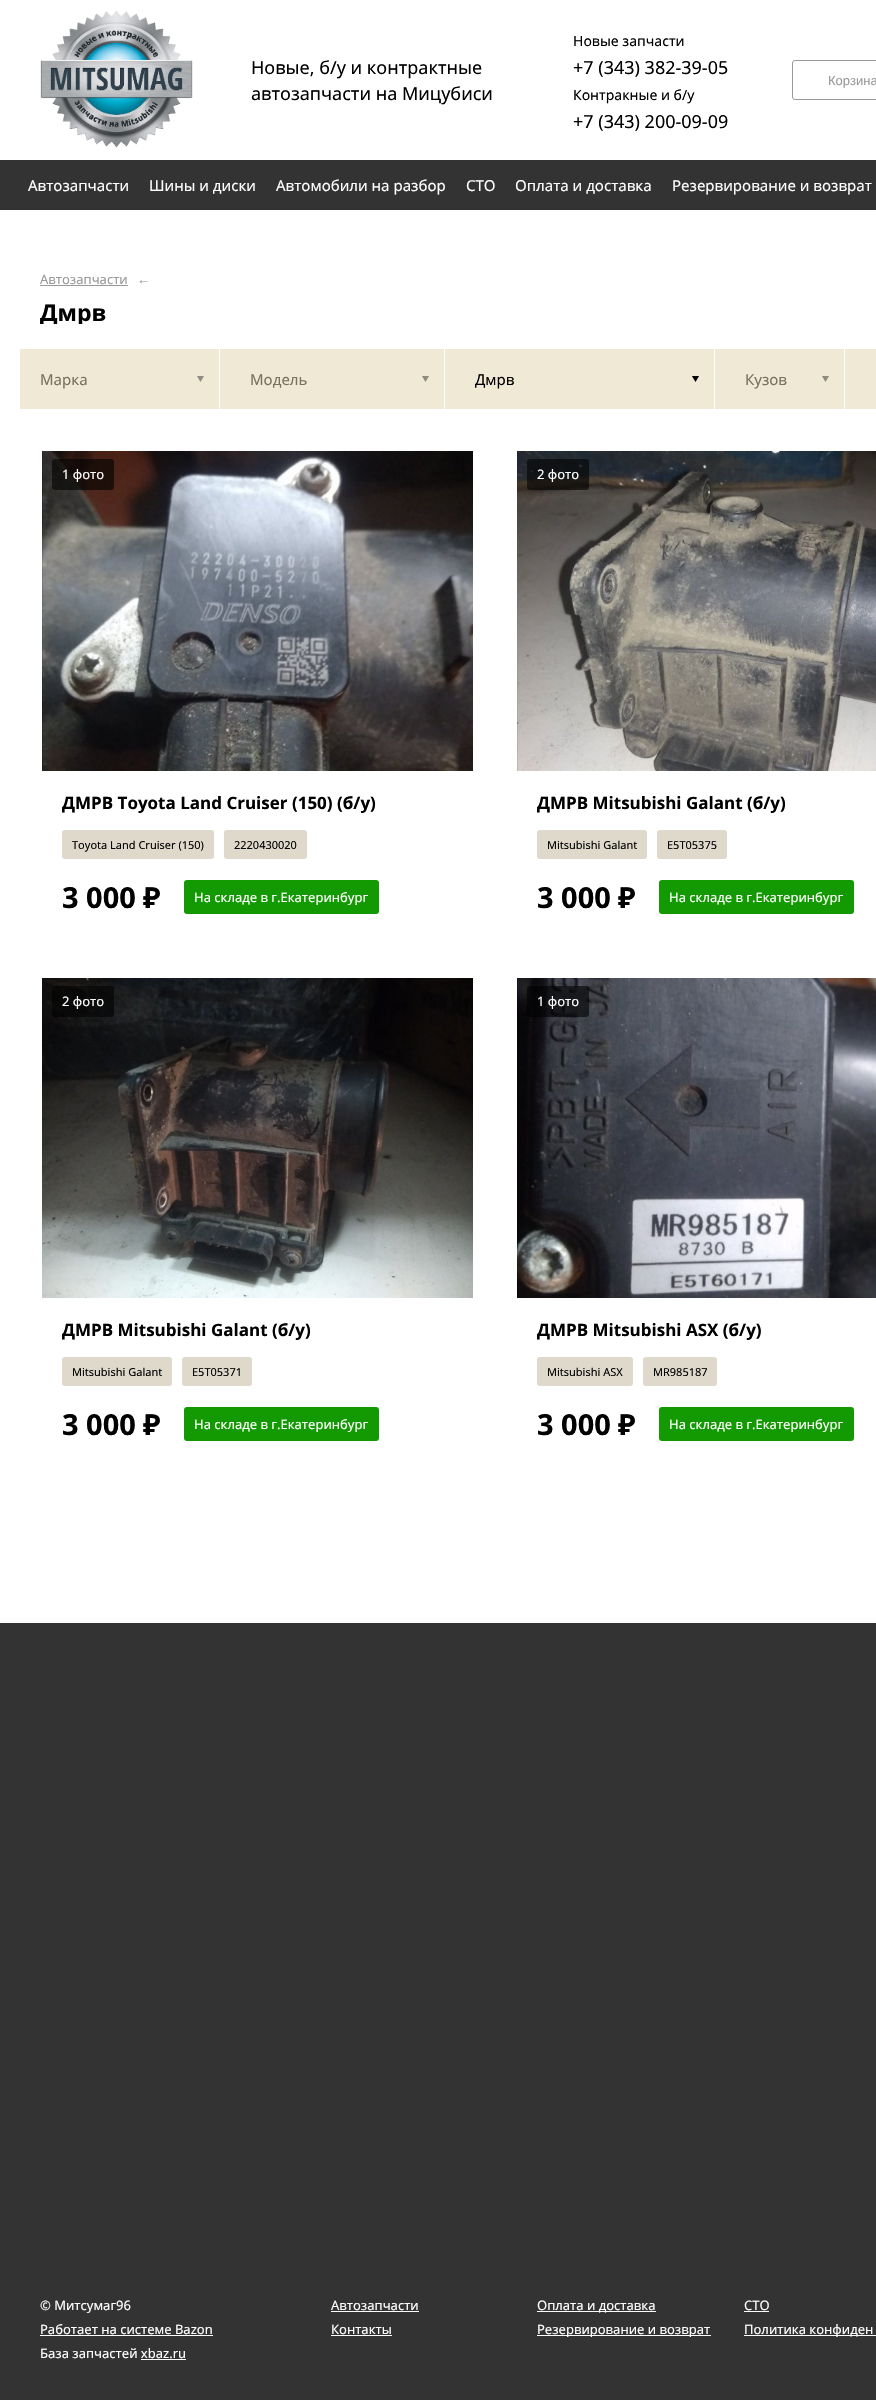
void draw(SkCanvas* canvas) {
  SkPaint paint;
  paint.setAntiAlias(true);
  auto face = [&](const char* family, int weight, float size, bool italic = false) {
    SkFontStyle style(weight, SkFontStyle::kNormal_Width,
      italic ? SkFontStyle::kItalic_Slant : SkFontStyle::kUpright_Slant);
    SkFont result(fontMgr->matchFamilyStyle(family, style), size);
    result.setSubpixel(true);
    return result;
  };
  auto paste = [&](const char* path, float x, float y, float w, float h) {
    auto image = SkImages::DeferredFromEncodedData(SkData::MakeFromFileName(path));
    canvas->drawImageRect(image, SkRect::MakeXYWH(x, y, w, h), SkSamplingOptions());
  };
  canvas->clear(0xff333333);
  paint.setColor(0xffffffff);
  canvas->drawRect(SkRect::MakeXYWH(0, 0, 876, 1623), paint);
  paste("img/1.png", 40, 10, 153, 138);
  paint.setStroke(true);
  paint.setStrokeWidth(1);
  paint.setColor(0xff999999);
  canvas->drawRoundRect(SkRect::MakeXYWH(792.5f, 60.5f, 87, 39), 2.5f, 2.5f, paint);
  paint.setStroke(false);
  {
    const struct { float x, y, w, h; SkColor color; } items[] = {
      {0, 160, 876, 50, 0xff333333},
      {40, 285, 88, 1, 0xff999999},
      {20, 349, 199, 60, 0xffefe9d5},
    };
    for (auto [x, y, w, h, color] : items) {
      paint.setColor(color);
      canvas->drawRect(SkRect::MakeXYWH(x, y, w, h), paint);
    }
  }
  paste("img/2.png", 197, 376, 7, 6);
  canvas->drawRect(SkRect::MakeXYWH(220, 349, 224, 60), paint);
  paste("img/2.png", 422, 376, 7, 6);
  canvas->drawRect(SkRect::MakeXYWH(445, 349, 269, 60), paint);
  paste("img/3.png", 692, 376, 7, 6);
  canvas->drawRect(SkRect::MakeXYWH(715, 349, 129, 60), paint);
  paste("img/2.png", 822, 376, 7, 6);
  canvas->drawRect(SkRect::MakeXYWH(845, 349, 31, 60), paint);
  paste("img/4.png", 42, 451, 431, 320);
  paint.setColor(0x99000000);
  canvas->drawRoundRect(SkRect::MakeXYWH(52, 459, 62, 31), 3, 3, paint);
  paint.setColor(0xffdfd9cc);
  canvas->drawRoundRect(SkRect::MakeXYWH(62, 830, 152, 29), 3, 3, paint);
  canvas->drawRoundRect(SkRect::MakeXYWH(224, 830, 83, 29), 3, 3, paint);
  paint.setColor(0xff139901);
  canvas->drawRoundRect(SkRect::MakeXYWH(184, 880, 195, 34), 3, 3, paint);
  paste("img/5.png", 517, 451, 359, 320);
  paint.setColor(0x99000000);
  canvas->drawRoundRect(SkRect::MakeXYWH(527, 459, 62, 31), 3, 3, paint);
  paint.setColor(0xffdfd9cc);
  canvas->drawRoundRect(SkRect::MakeXYWH(537, 830, 110, 29), 3, 3, paint);
  canvas->drawRoundRect(SkRect::MakeXYWH(657, 830, 70, 29), 3, 3, paint);
  paint.setColor(0xff139901);
  canvas->drawRoundRect(SkRect::MakeXYWH(659, 880, 195, 34), 3, 3, paint);
  paste("img/6.png", 42, 978, 431, 320);
  paint.setColor(0x99000000);
  canvas->drawRoundRect(SkRect::MakeXYWH(52, 986, 62, 31), 3, 3, paint);
  paint.setColor(0xffdfd9cc);
  canvas->drawRoundRect(SkRect::MakeXYWH(62, 1357, 110, 29), 3, 3, paint);
  canvas->drawRoundRect(SkRect::MakeXYWH(182, 1357, 70, 29), 3, 3, paint);
  paint.setColor(0xff139901);
  canvas->drawRoundRect(SkRect::MakeXYWH(184, 1407, 195, 34), 3, 3, paint);
  paste("img/7.png", 517, 978, 359, 320);
  paint.setColor(0x99000000);
  canvas->drawRoundRect(SkRect::MakeXYWH(527, 986, 62, 31), 3, 3, paint);
  paint.setColor(0xffdfd9cc);
  canvas->drawRoundRect(SkRect::MakeXYWH(537, 1357, 96, 29), 3, 3, paint);
  canvas->drawRoundRect(SkRect::MakeXYWH(643, 1357, 74, 29), 3, 3, paint);
  paint.setColor(0xff139901);
  canvas->drawRoundRect(SkRect::MakeXYWH(659, 1407, 195, 34), 3, 3, paint);
  {
    const struct { float x, y, w, h; SkColor color; } items[] = {
      {40, 2335, 173, 1, 0xffffffff},
      {141, 2359, 45, 1, 0xffffffff},
      {331, 2311, 88, 1, 0xffffffff},
      {331, 2335, 61, 1, 0xffffffff},
      {537, 2311, 119, 1, 0xffffffff},
      {537, 2335, 174, 1, 0xffffffff},
      {744, 2311, 25, 1, 0xffffffff},
      {744, 2335, 132, 1, 0xffffffff},
    };
    for (auto [x, y, w, h, color] : items) {
      paint.setColor(color);
      canvas->drawRect(SkRect::MakeXYWH(x, y, w, h), paint);
    }
  }
  auto f0 = face("Noto Sans", 400, 18);
  paint.setColor(0xff000000);
  canvas->drawString("Новые, б/у и контрактные", 251, 74, f0, paint);
  canvas->drawString("автозапчасти на Мицубиси", 251, 100, f0, paint);
  auto f1 = face("Noto Sans", 400, 14);
  canvas->drawString("Новые запчасти", 573, 46, f1, paint);
  canvas->drawString("+7 (343) 382-39-05", 573, 74, f0, paint);
  canvas->drawString("Контракные и б/у", 573, 100, f1, paint);
  canvas->drawString("+7 (343) 200-09-09", 573, 128, f0, paint);
  auto f2 = face("Liberation Sans", 400, 13);
  paint.setColor(0xff999999);
  canvas->drawString("Корзина", 828, 85, f2, paint);
  auto f3 = face("Noto Sans", 400, 15);
  paint.setColor(0xffffffff);
  {
    const struct { const char* s; float x, y; } items[] = {
      {"Автозапчасти", 28, 191},
      {"Шины и диски", 149, 191},
      {"Автомобили на разбор", 276, 191},
      {"СТО", 466, 191},
      {"Оплата и доставка", 515, 191},
      {"Резервирование и возврат", 672, 191},
    };
    for (auto [s, x, y] : items) {
      canvas->drawString(s, x, y, f3, paint);
    }
  }
  auto f4 = face("Noto Sans", 400, 13);
  paint.setColor(0xff999999);
  canvas->drawString("Автозапчасти", 40, 284, f4, paint);
  canvas->drawString("←", 137, 284, f4, paint);
  canvas->save();
  canvas->clipRect(SkRect::MakeXYWH(40, 286, 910, 38));
  auto f5 = face("Noto Sans", 700, 23);
  paint.setColor(0xff000000);
  canvas->drawString("Дмрв", 40, 321, f5, paint);
  canvas->restore();
  paint.setColor(0xff79725d);
  canvas->drawString("Марка", 40, 385, f3, paint);
  canvas->drawString("Модель", 250, 385, f3, paint);
  paint.setColor(0xff000000);
  canvas->drawString("Дмрв", 475, 385, f3, paint);
  paint.setColor(0xff79725d);
  canvas->drawString("Кузов", 745, 385, f3, paint);
  paint.setColor(0xffffffff);
  canvas->drawString("1 фото", 62, 479, f4, paint);
  auto f6 = face("Noto Sans", 700, 17);
  paint.setColor(0xff000000);
  canvas->drawString("ДМРВ Toyota Land Cruiser (150) (б/у)", 62, 809, f6, paint);
  auto f7 = face("Noto Sans", 400, 11);
  canvas->drawString("Toyota Land Cruiser (150)", 72, 849, f7, paint);
  canvas->drawString("2220430020", 234, 849, f7, paint);
  auto f8 = face("Noto Sans", 700, 29);
  canvas->drawString("3 000", 62, 908, f8, paint);
  auto f9 = face("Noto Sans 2", 700, 29);
  canvas->drawString("₽", 143, 908, f9, paint);
  paint.setColor(0xffffffff);
  canvas->drawString("На складе в г.Екатеринбург", 194, 902, f4, paint);
  canvas->drawString("2 фото", 537, 479, f4, paint);
  paint.setColor(0xff000000);
  canvas->drawString("ДМРВ Mitsubishi Galant (б/у)", 537, 809, f6, paint);
  canvas->drawString("Mitsubishi Galant", 547, 849, f7, paint);
  canvas->drawString("E5T05375", 667, 849, f7, paint);
  canvas->drawString("3 000", 537, 908, f8, paint);
  canvas->drawString("₽", 618, 908, f9, paint);
  paint.setColor(0xffffffff);
  canvas->drawString("На складе в г.Екатеринбург", 669, 902, f4, paint);
  canvas->drawString("2 фото", 62, 1006, f4, paint);
  paint.setColor(0xff000000);
  canvas->drawString("ДМРВ Mitsubishi Galant (б/у)", 62, 1336, f6, paint);
  canvas->drawString("Mitsubishi Galant", 72, 1376, f7, paint);
  canvas->drawString("E5T05371", 192, 1376, f7, paint);
  canvas->drawString("3 000", 62, 1435, f8, paint);
  canvas->drawString("₽", 143, 1435, f9, paint);
  paint.setColor(0xffffffff);
  canvas->drawString("На складе в г.Екатеринбург", 194, 1429, f4, paint);
  canvas->drawString("1 фото", 537, 1006, f4, paint);
  paint.setColor(0xff000000);
  canvas->drawString("ДМРВ Mitsubishi ASX (б/у)", 537, 1336, f6, paint);
  canvas->drawString("Mitsubishi ASX", 547, 1376, f7, paint);
  canvas->drawString("MR985187", 653, 1376, f7, paint);
  canvas->drawString("3 000", 537, 1435, f8, paint);
  canvas->drawString("₽", 618, 1435, f9, paint);
  paint.setColor(0xffffffff);
  {
    const struct { const char* s; float x, y; } items[] = {
      {"На складе в г.Екатеринбург", 669, 1429},
      {"© Митсумаг96", 40, 2310},
      {"Работает на системе Bazon", 40, 2334},
      {"База запчастей xbaz.ru", 40, 2358},
      {"Автозапчасти", 331, 2310},
      {"Контакты", 331, 2334},
      {"Оплата и доставка", 537, 2310},
      {"Резервирование и возврат", 537, 2334},
      {"СТО", 744, 2310},
      {"Политика конфиден", 744, 2334},
    };
    for (auto [s, x, y] : items) {
      canvas->drawString(s, x, y, f4, paint);
    }
  }
}
